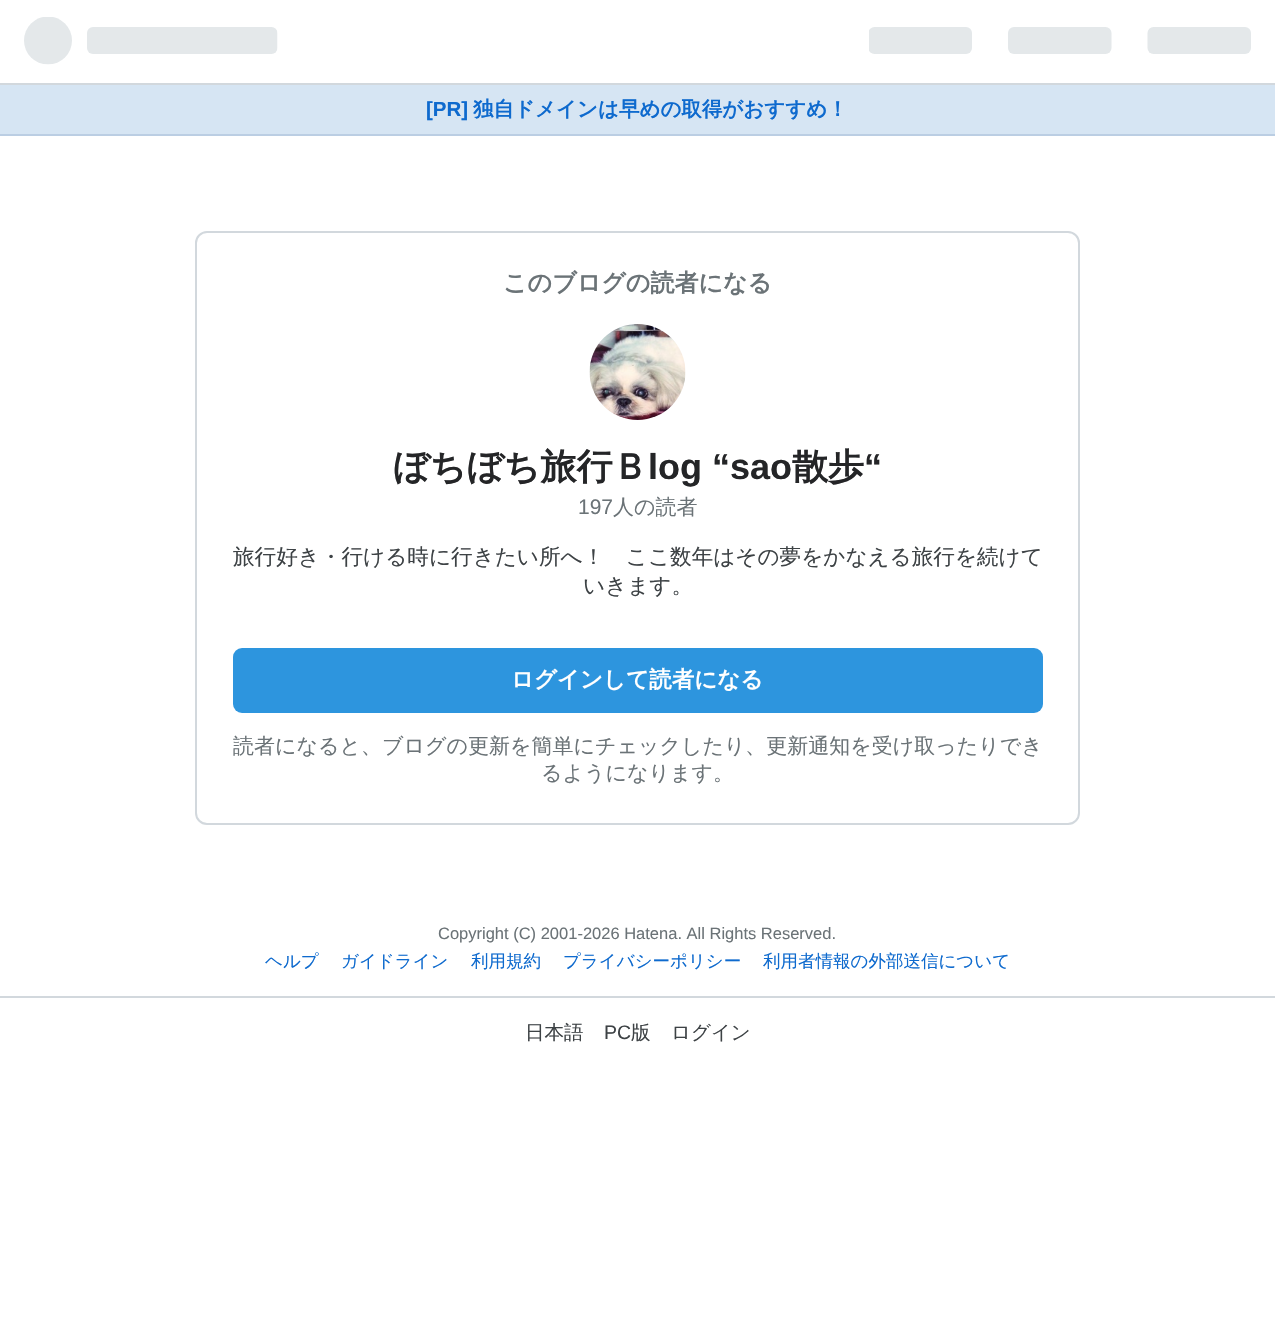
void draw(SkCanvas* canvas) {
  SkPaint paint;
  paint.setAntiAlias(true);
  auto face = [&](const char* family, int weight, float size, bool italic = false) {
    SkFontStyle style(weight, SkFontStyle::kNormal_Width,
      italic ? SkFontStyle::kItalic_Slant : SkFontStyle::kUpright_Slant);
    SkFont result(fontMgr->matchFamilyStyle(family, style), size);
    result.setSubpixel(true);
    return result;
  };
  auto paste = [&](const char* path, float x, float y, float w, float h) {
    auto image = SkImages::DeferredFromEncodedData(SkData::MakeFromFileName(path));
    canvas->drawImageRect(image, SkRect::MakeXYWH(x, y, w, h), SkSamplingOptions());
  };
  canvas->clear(0xffffffff);
  paint.setColor(0xffd2d8dd);
  canvas->drawRect(SkRect::MakeXYWH(0, 83, 1275, 2), paint);
  paste("img/1.png", 24, 17, 254, 48);
  paste("img/2.png", 869, 27, 382, 27);
  paint.setColor(0xffd6e5f3);
  canvas->drawRect(SkRect::MakeXYWH(0, 85, 1275, 49), paint);
  paint.setColor(0xffbbcee3);
  canvas->drawRect(SkRect::MakeXYWH(0, 134, 1275, 2), paint);
  paint.setStroke(true);
  paint.setStrokeWidth(2);
  paint.setColor(0xffd2d8dd);
  canvas->drawRoundRect(SkRect::MakeXYWH(196, 232, 883, 592), 11, 11, paint);
  paste("img/3.png", 589, 324, 97, 96);
  paint.setStroke(false);
  paint.setColor(0xff2d95de);
  canvas->drawRoundRect(SkRect::MakeXYWH(233, 648, 810, 65), 9, 9, paint);
  paint.setColor(0xffd2d8dd);
  canvas->drawRect(SkRect::MakeXYWH(0, 996, 1275, 2), paint);
  auto f0 = face("Liberation Sans", 700, 20.5f);
  paint.setColor(0xff0e6ace);
  canvas->drawString("[PR]", 426, 116, f0, paint);
  auto f1 = face("WenQuanYi Zen Hei", 700, 20.5f);
  canvas->drawString("独自ドメインは早めの取得がおすすめ！", 473, 116, f1, paint);
  auto f2 = face("WenQuanYi Zen Hei", 700, 24);
  paint.setColor(0xff6b7377);
  canvas->drawString("このブログの読者になる", 503, 291, f2, paint);
  auto f3 = face("WenQuanYi Zen Hei", 700, 36);
  paint.setColor(0xff242527);
  canvas->drawString("ぼちぼち旅行Ｂ", 393, 479, f3, paint);
  auto f4 = face("Liberation Sans", 700, 36);
  canvas->drawString("log “sao", 648, 479, f4, paint);
  canvas->drawString("散歩", 792, 479, f3, paint);
  canvas->drawString("“", 864, 479, f4, paint);
  auto f5 = face("Liberation Sans", 400, 21);
  paint.setColor(0xff6b7377);
  canvas->drawString("197", 578, 514, f5, paint);
  auto f6 = face("WenQuanYi Zen Hei", 500, 21);
  canvas->drawString("人の読者", 613, 514, f6, paint);
  auto f7 = face("WenQuanYi Zen Hei", 500, 21.6f);
  paint.setColor(0xff3d4245);
  canvas->drawString("旅行好き・行ける時に行きたい所へ！　ここ数年はその夢をかなえる旅行を続けて", 233, 564, f7, paint);
  canvas->drawString("いきます。", 583, 593, f7, paint);
  auto f8 = face("WenQuanYi Zen Hei", 700, 22.5f);
  paint.setColor(0xffffffff);
  canvas->drawString("ログインして読者になる", 511, 687, f8, paint);
  paint.setColor(0xff6b7377);
  canvas->drawString("読者になると、ブログの更新を簡単にチェックしたり、更新通知を受け取ったりでき", 233, 753, f6, paint);
  canvas->drawString("るようになります。", 541, 780, f6, paint);
  auto f9 = face("Liberation Sans", 400, 16.5f);
  canvas->drawString("Copyright (C) 2001-2026 Hatena. All Rights Reserved.", 438, 939, f9, paint);
  auto f10 = face("WenQuanYi Zen Hei", 500, 17.5f);
  paint.setColor(0xff0e6ace);
  {
    const struct { const char* s; float x, y; } items[] = {
      {"ヘルプ", 265, 967},
      {"ガイドライン", 341, 967},
      {"利用規約", 471, 967},
      {"プライバシーポリシー", 563, 967},
      {"利用者情報の外部送信について", 763, 967},
    };
    for (auto [s, x, y] : items) {
      canvas->drawString(s, x, y, f10, paint);
    }
  }
  auto f11 = face("WenQuanYi Zen Hei", 500, 19.5f);
  paint.setColor(0xff3d4245);
  canvas->drawString("日本語", 525, 1039, f11, paint);
  auto f12 = face("Liberation Sans", 400, 19.5f);
  canvas->drawString("PC", 604, 1039, f12, paint);
  canvas->drawString("版", 631, 1039, f11, paint);
  canvas->drawString("ログイン", 671, 1039, f11, paint);
}
